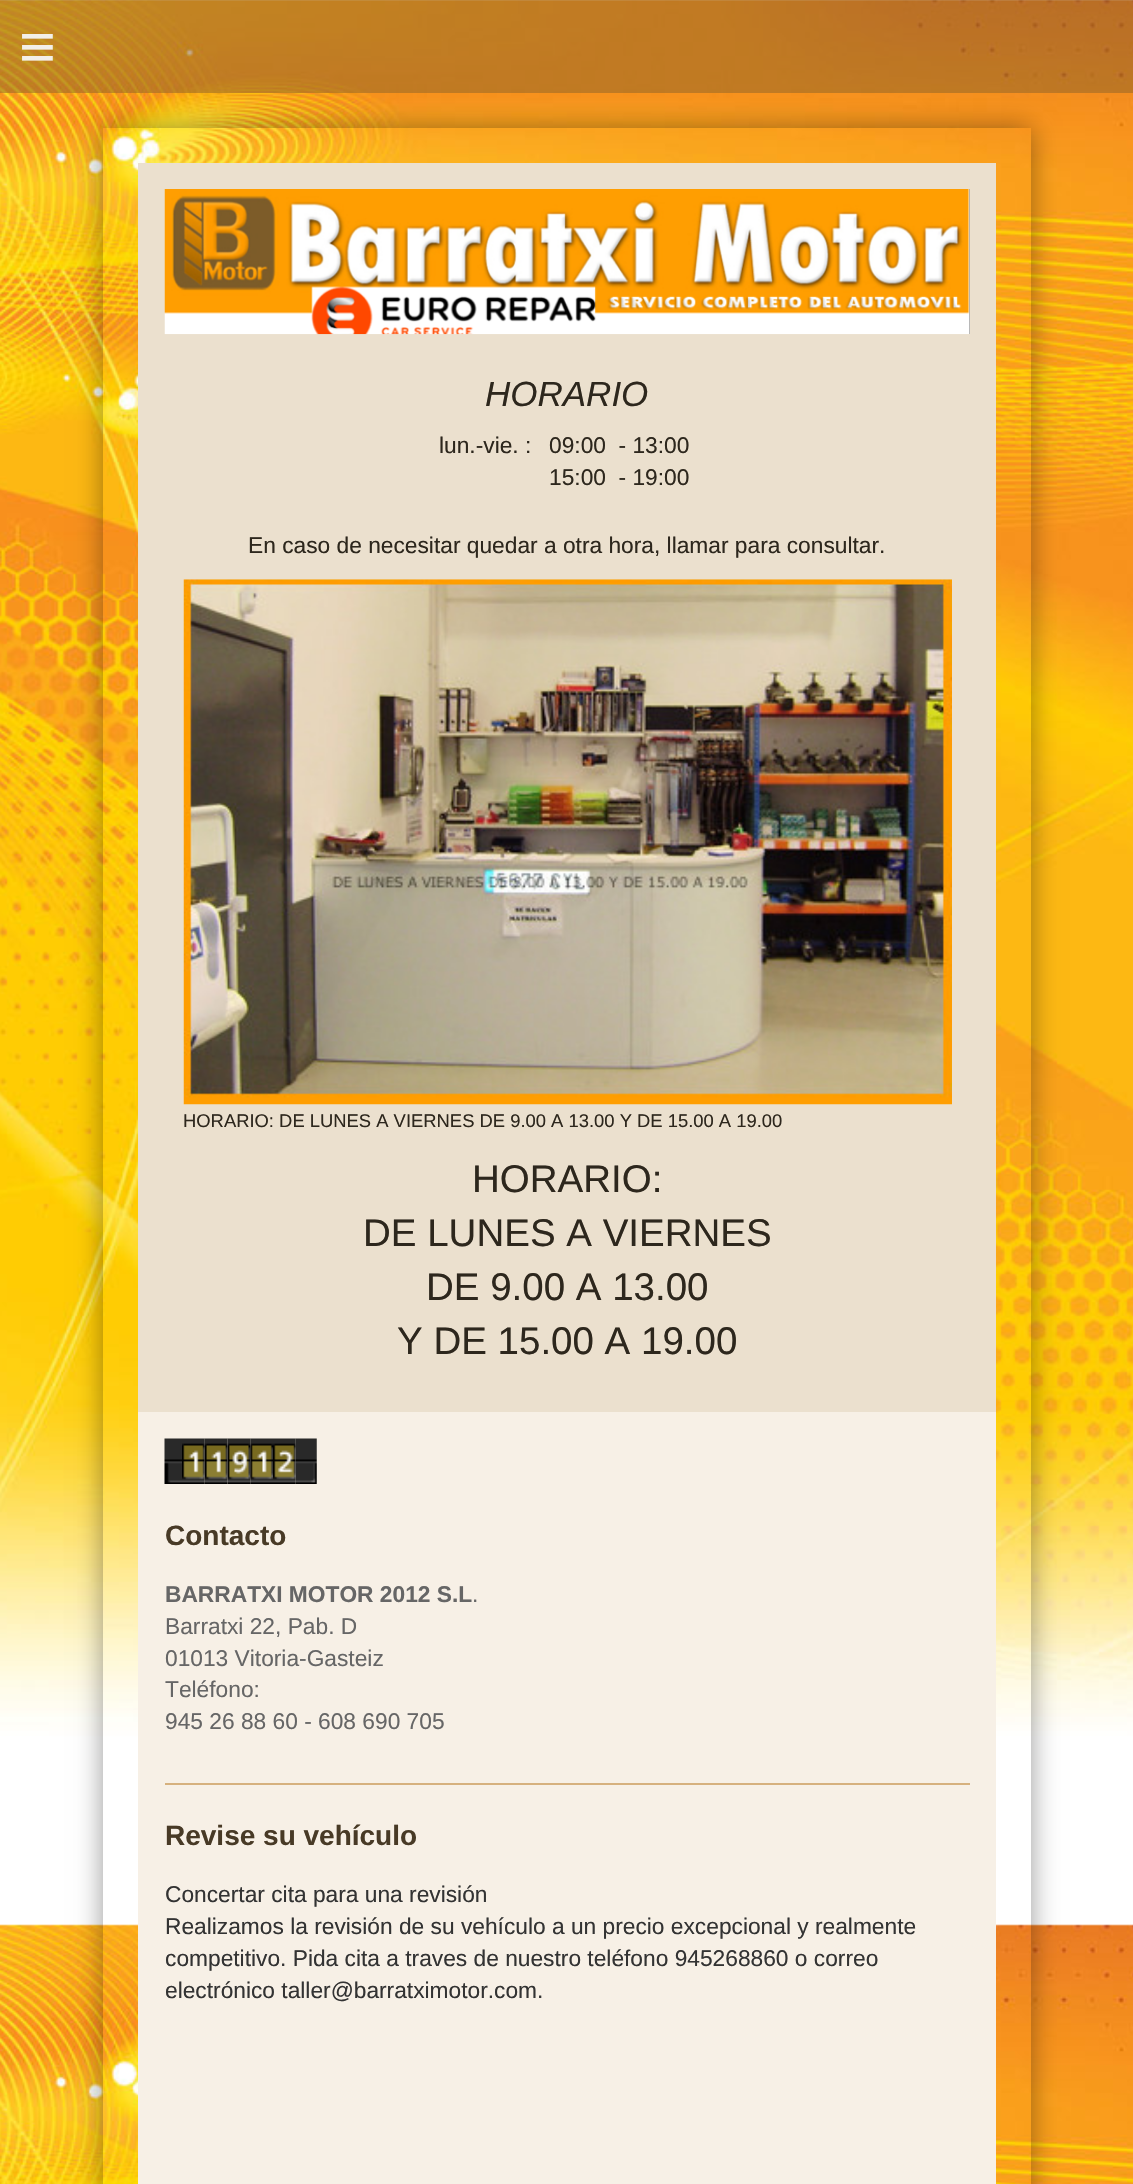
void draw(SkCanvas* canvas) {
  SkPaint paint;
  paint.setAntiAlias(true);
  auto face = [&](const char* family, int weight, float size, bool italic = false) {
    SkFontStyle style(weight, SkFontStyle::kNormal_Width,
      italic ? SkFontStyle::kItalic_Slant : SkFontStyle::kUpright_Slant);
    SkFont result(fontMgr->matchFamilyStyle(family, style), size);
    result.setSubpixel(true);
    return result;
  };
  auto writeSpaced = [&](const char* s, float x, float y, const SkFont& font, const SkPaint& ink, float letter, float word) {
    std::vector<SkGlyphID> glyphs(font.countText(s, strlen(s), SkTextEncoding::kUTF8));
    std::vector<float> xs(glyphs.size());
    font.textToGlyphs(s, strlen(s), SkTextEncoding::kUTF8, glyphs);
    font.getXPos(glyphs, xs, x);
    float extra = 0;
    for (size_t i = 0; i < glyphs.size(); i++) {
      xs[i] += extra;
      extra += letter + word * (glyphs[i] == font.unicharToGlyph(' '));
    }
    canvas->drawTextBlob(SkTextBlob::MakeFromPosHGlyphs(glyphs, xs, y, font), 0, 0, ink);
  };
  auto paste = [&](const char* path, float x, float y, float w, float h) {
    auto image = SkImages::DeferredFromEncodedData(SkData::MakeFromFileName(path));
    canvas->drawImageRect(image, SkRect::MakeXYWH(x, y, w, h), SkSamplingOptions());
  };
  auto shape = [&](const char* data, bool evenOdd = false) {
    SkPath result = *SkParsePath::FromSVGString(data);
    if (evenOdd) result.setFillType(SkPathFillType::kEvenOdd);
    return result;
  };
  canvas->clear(0xffffffff);
  paste("img/1.png", 0, 0, 1133, 2184);
  paint.setColor(0x80896227);
  canvas->drawRect(SkRect::MakeXYWH(0, 0, 1133, 93), paint);
  canvas->save();
  canvas->clipPath(shape("M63 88H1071V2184H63ZM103 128H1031V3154H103Z", true), true);
  paint.setColor(0x66000000);
  paint.setMaskFilter(SkMaskFilter::MakeBlur(kNormal_SkBlurStyle, 13));
  canvas->drawRect(SkRect::MakeXYWH(103, 128, 928, 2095), paint);
  paint.setMaskFilter(nullptr);
  canvas->restore();
  paint.setColor(0xffebe0ce);
  canvas->drawRect(SkRect::MakeXYWH(138, 163, 858, 1249), paint);
  paint.setColor(0xffa0a0a0);
  canvas->drawRect(SkRect::MakeXYWH(969, 189, 1, 145), paint);
  paste("img/2.png", 164, 189, 806, 146);
  paste("img/3.png", 183, 579, 769, 526);
  paint.setColor(0xfff7f0e6);
  canvas->drawRect(SkRect::MakeXYWH(138, 1412, 858, 772), paint);
  paste("img/4.png", 164, 1438, 18, 46);
  paste("img/5.png", 182, 1438, 23, 46);
  paste("img/6.png", 204, 1438, 24, 46);
  paste("img/7.png", 227, 1438, 24, 46);
  paste("img/8.png", 250, 1438, 23, 46);
  paste("img/9.png", 273, 1438, 23, 46);
  paste("img/10.png", 295, 1438, 22, 46);
  paint.setColor(0xffd6b17e);
  canvas->drawRect(SkRect::MakeXYWH(165, 1783, 805, 2), paint);
  auto f0 = face("Liberation Sans", 400, 63);
  paint.setColor(0xfff3efe9);
  writeSpaced("≡", 19, 68, f0, paint, 18, 0);
  auto f1 = face("Liberation Sans", 400, 35, true);
  paint.setColor(0xff2d271d);
  canvas->drawString("HORARIO", 485, 406, f1, paint);
  auto f2 = face("Liberation Sans", 400, 22.75f);
  {
    const struct { const char* s; float x, y; } items[] = {
      {"lun.-vie. :", 439, 453},
      {"09:00  - 13:00", 549, 453},
      {"15:00  - 19:00", 549, 485},
      {"En caso de necesitar quedar a otra hora, llamar para consultar.", 248, 553},
    };
    for (auto [s, x, y] : items) {
      canvas->drawString(s, x, y, f2, paint);
    }
  }
  auto f3 = face("Liberation Sans", 400, 18.4f);
  canvas->drawString("HORARIO: DE LUNES A VIERNES DE 9.00 A 13.00 Y DE 15.00 A 19.00", 183, 1127, f3, paint);
  auto f4 = face("Liberation Sans", 400, 38.5f);
  {
    const struct { const char* s; float x, y; } items[] = {
      {"HORARIO:", 472, 1192},
      {"DE LUNES A VIERNES", 363, 1246},
      {"DE 9.00 A 13.00", 426, 1300},
      {"Y DE 15.00 A 19.00", 397, 1354},
    };
    for (auto [s, x, y] : items) {
      canvas->drawString(s, x, y, f4, paint);
    }
  }
  auto f5 = face("Liberation Sans", 700, 28);
  paint.setColor(0xff483a26);
  canvas->drawString("Contacto", 165, 1545, f5, paint);
  auto f6 = face("Liberation Sans", 700, 22.75f);
  paint.setColor(0xff666666);
  canvas->drawString("BARRATXI MOTOR 2012 S.L", 165, 1602, f6, paint);
  {
    const struct { const char* s; float x, y; } items[] = {
      {".", 472, 1602},
      {"Barratxi 22, Pab. D", 165, 1634},
      {"01013 Vitoria-Gasteiz", 165, 1666},
      {"Teléfono:", 165, 1697},
      {"945 26 88 60 - 608 690 705", 165, 1729},
    };
    for (auto [s, x, y] : items) {
      canvas->drawString(s, x, y, f2, paint);
    }
  }
  paint.setColor(0xff483a26);
  canvas->drawString("Revise su vehículo", 165, 1845, f5, paint);
  paint.setColor(0xff333333);
  {
    const struct { const char* s; float x, y; } items[] = {
      {"Concertar cita para una revisión", 165, 1902},
      {"Realizamos la revisión de su vehículo a un precio excepcional y realmente", 165, 1934},
      {"competitivo. Pida cita a traves de nuestro teléfono 945268860 o correo", 165, 1966},
      {"electrónico taller@barratximotor.com.", 165, 1998},
    };
    for (auto [s, x, y] : items) {
      canvas->drawString(s, x, y, f2, paint);
    }
  }
}
